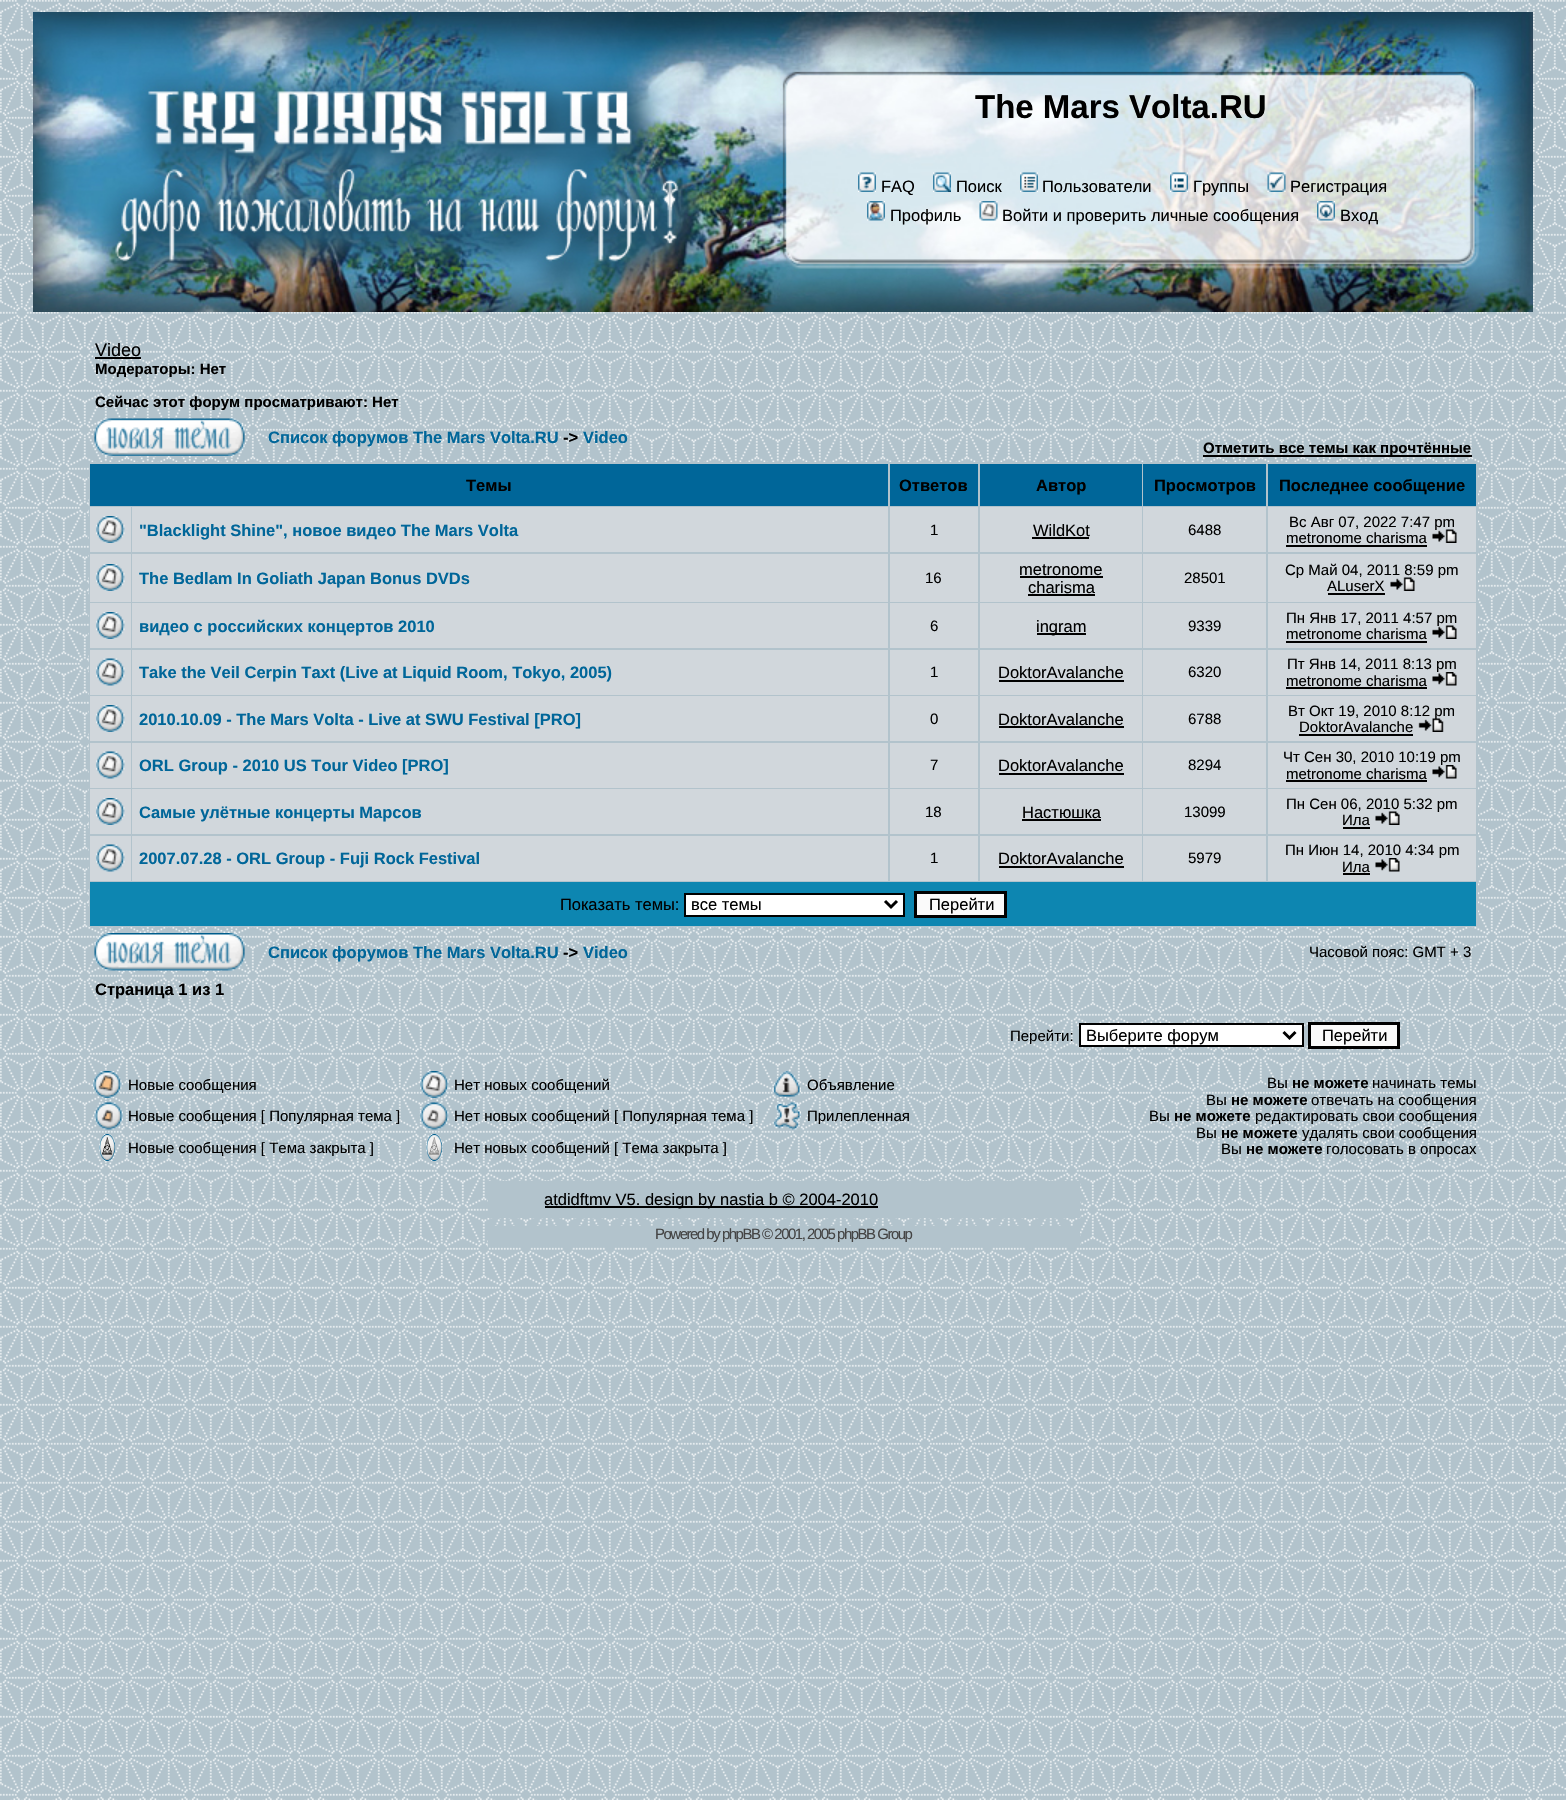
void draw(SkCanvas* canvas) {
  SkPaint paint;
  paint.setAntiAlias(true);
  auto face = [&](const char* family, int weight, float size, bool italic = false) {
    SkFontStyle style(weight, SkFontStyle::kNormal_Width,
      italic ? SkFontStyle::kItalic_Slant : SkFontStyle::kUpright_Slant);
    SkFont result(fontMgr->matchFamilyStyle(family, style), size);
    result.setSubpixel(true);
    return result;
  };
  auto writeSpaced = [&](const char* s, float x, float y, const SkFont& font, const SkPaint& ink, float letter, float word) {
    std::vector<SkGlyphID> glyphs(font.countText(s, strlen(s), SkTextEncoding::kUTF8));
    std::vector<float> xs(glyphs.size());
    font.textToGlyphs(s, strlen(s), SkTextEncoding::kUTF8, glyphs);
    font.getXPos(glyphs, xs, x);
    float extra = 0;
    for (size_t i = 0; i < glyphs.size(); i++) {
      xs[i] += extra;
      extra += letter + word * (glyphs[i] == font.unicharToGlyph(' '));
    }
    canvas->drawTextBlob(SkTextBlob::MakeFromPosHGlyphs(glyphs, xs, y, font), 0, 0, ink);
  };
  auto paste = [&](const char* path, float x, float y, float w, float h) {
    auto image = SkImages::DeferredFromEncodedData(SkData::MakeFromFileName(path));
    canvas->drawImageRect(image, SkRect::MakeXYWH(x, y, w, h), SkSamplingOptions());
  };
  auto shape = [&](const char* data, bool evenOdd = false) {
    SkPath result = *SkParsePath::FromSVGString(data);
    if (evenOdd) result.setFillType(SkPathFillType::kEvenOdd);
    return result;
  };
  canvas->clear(0xffffffff);
  paste("img/1.png", 0, 0, 1566, 1800);
  paste("img/2.png", 33, 12, 1500, 300);
  paste("img/3.png", 858, 172, 18, 20);
  paste("img/4.png", 933, 172, 18, 20);
  paste("img/5.png", 1020, 172, 18, 20);
  paste("img/6.png", 1170, 172, 18, 20);
  paste("img/7.png", 1267, 172, 19, 20);
  paste("img/8.png", 867, 201, 18, 20);
  paste("img/9.png", 979, 201, 19, 20);
  paste("img/10.png", 1317, 201, 18, 20);
  paint.setColor(0xff000000);
  canvas->drawRect(SkRect::MakeXYWH(95, 357, 46, 2), paint);
  paste("img/11.png", 94, 418, 151, 38);
  {
    const struct { float x, y, w, h; SkColor color; } items[] = {
      {1203, 455, 269, 2, 0xff000000},
      {89, 462, 1389, 465, 0xffb2c3cc},
      {90, 464, 798, 42, 0xff006699},
      {890, 464, 88, 42, 0xff006699},
      {980, 464, 162, 42, 0xff006699},
      {1143, 464, 123, 42, 0xff006699},
      {1268, 464, 208, 42, 0xff006699},
      {90, 507, 41, 45, 0xffd1d7dc},
    };
    for (auto [x, y, w, h, color] : items) {
      paint.setColor(color);
      canvas->drawRect(SkRect::MakeXYWH(x, y, w, h), paint);
    }
  }
  paste("img/12.png", 96, 516, 29, 27);
  {
    const struct { float x, y, w, h; SkColor color; } items[] = {
      {132, 507, 756, 45, 0xffd1d7dc},
      {890, 507, 88, 45, 0xffd1d7dc},
      {980, 507, 162, 45, 0xffd1d7dc},
      {1032, 537, 57, 2, 0xff000000},
      {1143, 507, 123, 45, 0xffd1d7dc},
      {1268, 507, 208, 45, 0xffd1d7dc},
      {1286, 545, 141, 2, 0xff000000},
      {90, 554, 41, 48, 0xffd1d7dc},
    };
    for (auto [x, y, w, h, color] : items) {
      paint.setColor(color);
      canvas->drawRect(SkRect::MakeXYWH(x, y, w, h), paint);
    }
  }
  paste("img/12.png", 96, 564, 29, 27);
  {
    const struct { float x, y, w, h; SkColor color; } items[] = {
      {132, 554, 756, 48, 0xffd1d7dc},
      {890, 554, 88, 48, 0xffd1d7dc},
      {980, 554, 162, 48, 0xffd1d7dc},
      {1020, 576, 83, 2, 0xff000000},
      {1028, 594, 67, 2, 0xff000000},
      {1143, 554, 123, 48, 0xffd1d7dc},
      {1268, 554, 208, 48, 0xffd1d7dc},
      {1328, 593, 57, 2, 0xff000000},
      {90, 603, 41, 45, 0xffd1d7dc},
    };
    for (auto [x, y, w, h, color] : items) {
      paint.setColor(color);
      canvas->drawRect(SkRect::MakeXYWH(x, y, w, h), paint);
    }
  }
  paste("img/12.png", 96, 612, 29, 27);
  {
    const struct { float x, y, w, h; SkColor color; } items[] = {
      {132, 603, 756, 45, 0xffd1d7dc},
      {890, 603, 88, 45, 0xffd1d7dc},
      {980, 603, 162, 45, 0xffd1d7dc},
      {1037, 633, 49, 2, 0xff000000},
      {1143, 603, 123, 45, 0xffd1d7dc},
      {1268, 603, 208, 45, 0xffd1d7dc},
      {1286, 641, 141, 2, 0xff000000},
      {90, 650, 41, 45, 0xffd1d7dc},
    };
    for (auto [x, y, w, h, color] : items) {
      paint.setColor(color);
      canvas->drawRect(SkRect::MakeXYWH(x, y, w, h), paint);
    }
  }
  paste("img/16.png", 96, 658, 29, 28);
  {
    const struct { float x, y, w, h; SkColor color; } items[] = {
      {132, 650, 756, 45, 0xffd1d7dc},
      {890, 650, 88, 45, 0xffd1d7dc},
      {980, 650, 162, 45, 0xffd1d7dc},
      {999, 680, 125, 2, 0xff000000},
      {1143, 650, 123, 45, 0xffd1d7dc},
      {1268, 650, 208, 45, 0xffd1d7dc},
      {1286, 687, 141, 2, 0xff000000},
      {90, 696, 41, 45, 0xffd1d7dc},
    };
    for (auto [x, y, w, h, color] : items) {
      paint.setColor(color);
      canvas->drawRect(SkRect::MakeXYWH(x, y, w, h), paint);
    }
  }
  paste("img/12.png", 96, 705, 29, 27);
  {
    const struct { float x, y, w, h; SkColor color; } items[] = {
      {132, 696, 756, 45, 0xffd1d7dc},
      {890, 696, 88, 45, 0xffd1d7dc},
      {980, 696, 162, 45, 0xffd1d7dc},
      {999, 726, 125, 2, 0xff000000},
      {1143, 696, 123, 45, 0xffd1d7dc},
      {1268, 696, 208, 45, 0xffd1d7dc},
      {1299, 734, 114, 2, 0xff000000},
      {90, 743, 41, 45, 0xffd1d7dc},
    };
    for (auto [x, y, w, h, color] : items) {
      paint.setColor(color);
      canvas->drawRect(SkRect::MakeXYWH(x, y, w, h), paint);
    }
  }
  paste("img/16.png", 96, 751, 29, 28);
  {
    const struct { float x, y, w, h; SkColor color; } items[] = {
      {132, 743, 756, 45, 0xffd1d7dc},
      {890, 743, 88, 45, 0xffd1d7dc},
      {980, 743, 162, 45, 0xffd1d7dc},
      {999, 773, 125, 2, 0xff000000},
      {1143, 743, 123, 45, 0xffd1d7dc},
      {1268, 743, 208, 45, 0xffd1d7dc},
      {1286, 780, 141, 2, 0xff000000},
      {90, 789, 41, 45, 0xffd1d7dc},
    };
    for (auto [x, y, w, h, color] : items) {
      paint.setColor(color);
      canvas->drawRect(SkRect::MakeXYWH(x, y, w, h), paint);
    }
  }
  paste("img/12.png", 96, 798, 29, 27);
  {
    const struct { float x, y, w, h; SkColor color; } items[] = {
      {132, 789, 756, 45, 0xffd1d7dc},
      {890, 789, 88, 45, 0xffd1d7dc},
      {980, 789, 162, 45, 0xffd1d7dc},
      {1022, 819, 79, 2, 0xff000000},
      {1143, 789, 123, 45, 0xffd1d7dc},
      {1268, 789, 208, 45, 0xffd1d7dc},
      {1343, 827, 27, 2, 0xff000000},
      {90, 836, 41, 45, 0xffd1d7dc},
    };
    for (auto [x, y, w, h, color] : items) {
      paint.setColor(color);
      canvas->drawRect(SkRect::MakeXYWH(x, y, w, h), paint);
    }
  }
  paste("img/16.png", 96, 844, 29, 28);
  {
    const struct { float x, y, w, h; SkColor color; } items[] = {
      {132, 836, 756, 45, 0xffd1d7dc},
      {890, 836, 88, 45, 0xffd1d7dc},
      {980, 836, 162, 45, 0xffd1d7dc},
      {999, 866, 125, 2, 0xff000000},
      {1143, 836, 123, 45, 0xffd1d7dc},
      {1268, 836, 208, 45, 0xffd1d7dc},
      {1343, 873, 27, 2, 0xff000000},
      {90, 882, 1386, 44, 0xff0d86b1},
    };
    for (auto [x, y, w, h, color] : items) {
      paint.setColor(color);
      canvas->drawRect(SkRect::MakeXYWH(x, y, w, h), paint);
    }
  }
  paint.setColor(0xffffffff);
  canvas->drawRect(SkRect::MakeXYWH(685, 894, 219, 22), paint);
  paint.setStroke(true);
  paint.setStrokeWidth(2);
  paint.setColor(0xff000000);
  canvas->drawRect(SkRect::MakeXYWH(685, 894, 219, 22), paint);
  paint.setStrokeWidth(3);
  canvas->drawPath(shape("M885 901L891 907L897 901"), paint);
  paint.setStroke(false);
  paint.setColor(0xfffafafa);
  canvas->drawRect(SkRect::MakeXYWH(915.5f, 892.5f, 90, 24), paint);
  paint.setStroke(true);
  paint.setColor(0xff000000);
  canvas->drawRect(SkRect::MakeXYWH(915.5f, 892.5f, 90, 24), paint);
  paste("img/21.png", 94, 933, 151, 38);
  paint.setStroke(false);
  paint.setColor(0xffffffff);
  canvas->drawRect(SkRect::MakeXYWH(1080, 1024, 223, 22), paint);
  paint.setStroke(true);
  paint.setStrokeWidth(2);
  paint.setColor(0xff000000);
  canvas->drawRect(SkRect::MakeXYWH(1080, 1024, 223, 22), paint);
  paint.setStrokeWidth(3);
  canvas->drawPath(shape("M1283.5 1032L1289.5 1038L1295.5 1032"), paint);
  paint.setStroke(false);
  paint.setColor(0xfffafafa);
  canvas->drawRect(SkRect::MakeXYWH(1309.5f, 1023.5f, 89, 24), paint);
  paint.setStroke(true);
  paint.setColor(0xff000000);
  canvas->drawRect(SkRect::MakeXYWH(1309.5f, 1023.5f, 89, 24), paint);
  paste("img/22.png", 93, 1071, 29, 27);
  paste("img/23.png", 420, 1071, 29, 27);
  paste("img/24.png", 772, 1071, 29, 26);
  paste("img/25.png", 94, 1102, 29, 28);
  paste("img/26.png", 420, 1102, 29, 28);
  paste("img/27.png", 773, 1102, 28, 28);
  paste("img/28.png", 99, 1134, 17, 27);
  paste("img/29.png", 426, 1134, 17, 27);
  paint.setStroke(false);
  {
    const struct { float x, y, w, h; SkColor color; } items[] = {
      {488, 1181, 592, 37, 0xffb2c3cc},
      {545, 1206, 333, 2, 0xff000000},
      {488, 1226, 592, 21, 0xffb2c3cc},
    };
    for (auto [x, y, w, h, color] : items) {
      paint.setColor(color);
      canvas->drawRect(SkRect::MakeXYWH(x, y, w, h), paint);
    }
  }
  auto f0 = face("Liberation Sans", 700, 33);
  paint.setColor(0xff000000);
  canvas->drawString("The Mars Volta.RU", 975, 118, f0, paint);
  auto f1 = face("Liberation Sans", 400, 16.5f);
  {
    const struct { const char* s; float x, y; } items[] = {
      {"FAQ", 881, 192},
      {"Поиск", 956, 192},
      {"Пользователи", 1042, 192},
      {"Группы", 1193, 192},
      {"Регистрация", 1290, 192},
      {"Профиль", 890, 221},
      {"Войти и проверить личные сообщения", 1002, 221},
      {"Вход", 1340, 221},
    };
    for (auto [s, x, y] : items) {
      canvas->drawString(s, x, y, f1, paint);
    }
  }
  auto f2 = face("Liberation Sans", 400, 18);
  canvas->drawString("Video", 95, 356, f2, paint);
  auto f3 = face("Liberation Sans", 700, 15);
  canvas->drawString("Модераторы: Нет", 95, 374, f3, paint);
  canvas->drawString("Сейчас этот форум просматривают: Нет", 95, 407, f3, paint);
  auto f4 = face("Liberation Sans", 700, 16.5f);
  paint.setColor(0xff006699);
  canvas->drawString("Список форумов The Mars Volta.RU", 268, 443, f4, paint);
  paint.setColor(0xff000000);
  canvas->drawString("->", 563, 443, f4, paint);
  paint.setColor(0xff006699);
  canvas->drawString("Video", 583, 443, f4, paint);
  paint.setColor(0xff000000);
  canvas->drawString("Отметить все темы как прочтённые", 1203, 453, f3, paint);
  {
    const struct { const char* s; float x, y; } items[] = {
      {"Темы", 466, 491},
      {"Ответов", 899, 491},
      {"Автор", 1036, 491},
      {"Просмотров", 1154, 491},
      {"Последнее сообщение", 1279, 491},
    };
    for (auto [s, x, y] : items) {
      canvas->drawString(s, x, y, f4, paint);
    }
  }
  paint.setColor(0xff006699);
  canvas->drawString("\"Blacklight Shine\", новое видео The Mars Volta", 139, 536, f4, paint);
  auto f5 = face("Liberation Sans", 400, 15);
  paint.setColor(0xff000000);
  canvas->drawString("1", 930, 535, f5, paint);
  canvas->drawString("WildKot", 1033, 536, f1, paint);
  {
    const struct { const char* s; float x, y; } items[] = {
      {"6488", 1188, 535},
      {"Вс Авг 07, 2022 7:47 pm", 1289, 527},
      {"metronome charisma", 1286, 543},
    };
    for (auto [s, x, y] : items) {
      canvas->drawString(s, x, y, f5, paint);
    }
  }
  paste("img/13.png", 1432, 529, 25, 14);
  paint.setColor(0xff006699);
  canvas->drawString("The Bedlam In Goliath Japan Bonus DVDs", 139, 584, f4, paint);
  paint.setColor(0xff000000);
  canvas->drawString("16", 925, 583, f5, paint);
  canvas->drawString("metronome", 1019, 575, f1, paint);
  canvas->drawString("charisma", 1028, 593, f1, paint);
  {
    const struct { const char* s; float x, y; } items[] = {
      {"28501", 1184, 583},
      {"Ср Май 04, 2011 8:59 pm", 1285, 575},
      {"ALuserX", 1327, 591},
    };
    for (auto [s, x, y] : items) {
      canvas->drawString(s, x, y, f5, paint);
    }
  }
  paste("img/14.png", 1390, 577, 25, 14);
  paint.setColor(0xff006699);
  canvas->drawString("видео с российских концертов 2010", 139, 632, f4, paint);
  paint.setColor(0xff000000);
  canvas->drawString("6", 930, 631, f5, paint);
  canvas->drawString("ingram", 1036, 632, f1, paint);
  {
    const struct { const char* s; float x, y; } items[] = {
      {"9339", 1188, 631},
      {"Пн Янв 17, 2011 4:57 pm", 1286, 623},
      {"metronome charisma", 1286, 639},
    };
    for (auto [s, x, y] : items) {
      canvas->drawString(s, x, y, f5, paint);
    }
  }
  paste("img/15.png", 1432, 625, 25, 14);
  paint.setColor(0xff006699);
  canvas->drawString("Take the Veil Cerpin Taxt (Live at Liquid Room, Tokyo, 2005)", 139, 678, f4, paint);
  paint.setColor(0xff000000);
  canvas->drawString("1", 930, 677, f5, paint);
  canvas->drawString("DoktorAvalanche", 998, 678, f1, paint);
  {
    const struct { const char* s; float x, y; } items[] = {
      {"6320", 1188, 677},
      {"Пт Янв 14, 2011 8:13 pm", 1287, 669},
      {"metronome charisma", 1286, 686},
    };
    for (auto [s, x, y] : items) {
      canvas->drawString(s, x, y, f5, paint);
    }
  }
  paste("img/17.png", 1432, 672, 25, 14);
  paint.setColor(0xff006699);
  canvas->drawString("2010.10.09 - The Mars Volta - Live at SWU Festival [PRO]", 139, 725, f4, paint);
  paint.setColor(0xff000000);
  canvas->drawString("0", 930, 724, f5, paint);
  canvas->drawString("DoktorAvalanche", 998, 725, f1, paint);
  {
    const struct { const char* s; float x, y; } items[] = {
      {"6788", 1188, 724},
      {"Вт Окт 19, 2010 8:12 pm", 1288, 716},
      {"DoktorAvalanche", 1299, 732},
    };
    for (auto [s, x, y] : items) {
      canvas->drawString(s, x, y, f5, paint);
    }
  }
  paste("img/18.png", 1418, 718, 26, 14);
  paint.setColor(0xff006699);
  canvas->drawString("ORL Group - 2010 US Tour Video [PRO]", 139, 771, f4, paint);
  paint.setColor(0xff000000);
  canvas->drawString("7", 930, 770, f5, paint);
  canvas->drawString("DoktorAvalanche", 998, 771, f1, paint);
  {
    const struct { const char* s; float x, y; } items[] = {
      {"8294", 1188, 770},
      {"Чт Сен 30, 2010 10:19 pm", 1283, 762},
      {"metronome charisma", 1286, 779},
    };
    for (auto [s, x, y] : items) {
      canvas->drawString(s, x, y, f5, paint);
    }
  }
  paste("img/19.png", 1432, 765, 25, 14);
  paint.setColor(0xff006699);
  canvas->drawString("Самые улётные концерты Марсов", 139, 818, f4, paint);
  paint.setColor(0xff000000);
  canvas->drawString("18", 925, 817, f5, paint);
  canvas->drawString("Настюшка", 1022, 818, f1, paint);
  {
    const struct { const char* s; float x, y; } items[] = {
      {"13099", 1184, 817},
      {"Пн Сен 06, 2010 5:32 pm", 1286, 809},
      {"Ила", 1342, 825},
    };
    for (auto [s, x, y] : items) {
      canvas->drawString(s, x, y, f5, paint);
    }
  }
  paste("img/14.png", 1375, 811, 25, 14);
  paint.setColor(0xff006699);
  canvas->drawString("2007.07.28 - ORL Group - Fuji Rock Festival", 139, 864, f4, paint);
  paint.setColor(0xff000000);
  canvas->drawString("1", 930, 863, f5, paint);
  canvas->drawString("DoktorAvalanche", 998, 864, f1, paint);
  {
    const struct { const char* s; float x, y; } items[] = {
      {"5979", 1188, 863},
      {"Пн Июн 14, 2010 4:34 pm", 1285, 855},
      {"Ила", 1342, 872},
    };
    for (auto [s, x, y] : items) {
      canvas->drawString(s, x, y, f5, paint);
    }
  }
  paste("img/20.png", 1375, 858, 25, 14);
  {
    const struct { const char* s; float x, y; } items[] = {
      {"Показать темы:", 560, 910},
      {"все темы", 691, 910},
      {"Перейти", 929, 910},
    };
    for (auto [s, x, y] : items) {
      canvas->drawString(s, x, y, f1, paint);
    }
  }
  paint.setColor(0xff006699);
  canvas->drawString("Список форумов The Mars Volta.RU", 268, 958, f4, paint);
  paint.setColor(0xff000000);
  canvas->drawString("->", 563, 958, f4, paint);
  paint.setColor(0xff006699);
  canvas->drawString("Video", 583, 958, f4, paint);
  paint.setColor(0xff000000);
  canvas->drawString("Часовой пояс: GMT + 3", 1309, 957, f5, paint);
  canvas->drawString("Страница 1 из 1", 95, 995, f4, paint);
  canvas->drawString("Перейти:", 1010, 1041, f5, paint);
  canvas->drawString("Выберите форум", 1086, 1041, f1, paint);
  canvas->drawString("Перейти", 1322, 1041, f1, paint);
  {
    const struct { const char* s; float x, y; } items[] = {
      {"Новые сообщения", 128, 1090},
      {"Нет новых сообщений", 454, 1090},
      {"Объявление", 807, 1090},
      {"Новые сообщения [ Популярная тема ]", 128, 1121},
      {"Нет новых сообщений [ Популярная тема ]", 454, 1121},
      {"Прилепленная", 807, 1121},
      {"Новые сообщения [ Тема закрыта ]", 128, 1153},
      {"Нет новых сообщений [ Тема закрыта ]", 454, 1153},
      {"Вы", 1267, 1088},
    };
    for (auto [s, x, y] : items) {
      canvas->drawString(s, x, y, f5, paint);
    }
  }
  canvas->drawString("не можете", 1292, 1088, f3, paint);
  canvas->drawString("начинать темы", 1372, 1088, f5, paint);
  canvas->drawString("Вы", 1206, 1105, f5, paint);
  canvas->drawString("не можете", 1231, 1105, f3, paint);
  canvas->drawString("отвечать на сообщения", 1311, 1105, f5, paint);
  canvas->drawString("Вы", 1149, 1121, f5, paint);
  canvas->drawString("не можете", 1174, 1121, f3, paint);
  canvas->drawString("редактировать свои сообщения", 1255, 1121, f5, paint);
  canvas->drawString("Вы", 1196, 1138, f5, paint);
  canvas->drawString("не можете", 1221, 1138, f3, paint);
  canvas->drawString("удалять свои сообщения", 1302, 1138, f5, paint);
  canvas->drawString("Вы", 1221, 1154, f5, paint);
  canvas->drawString("не можете", 1246, 1154, f3, paint);
  canvas->drawString("голосовать в опросах", 1326, 1154, f5, paint);
  canvas->drawString("atdidftmv V5. design by nastia b © 2004-2010", 544, 1205, f1, paint);
  paint.setColor(0xff444444);
  writeSpaced("Powered by phpBB © 2001, 2005 phpBB Group", 655, 1239, f5, paint, -1.5f, 0);
}
